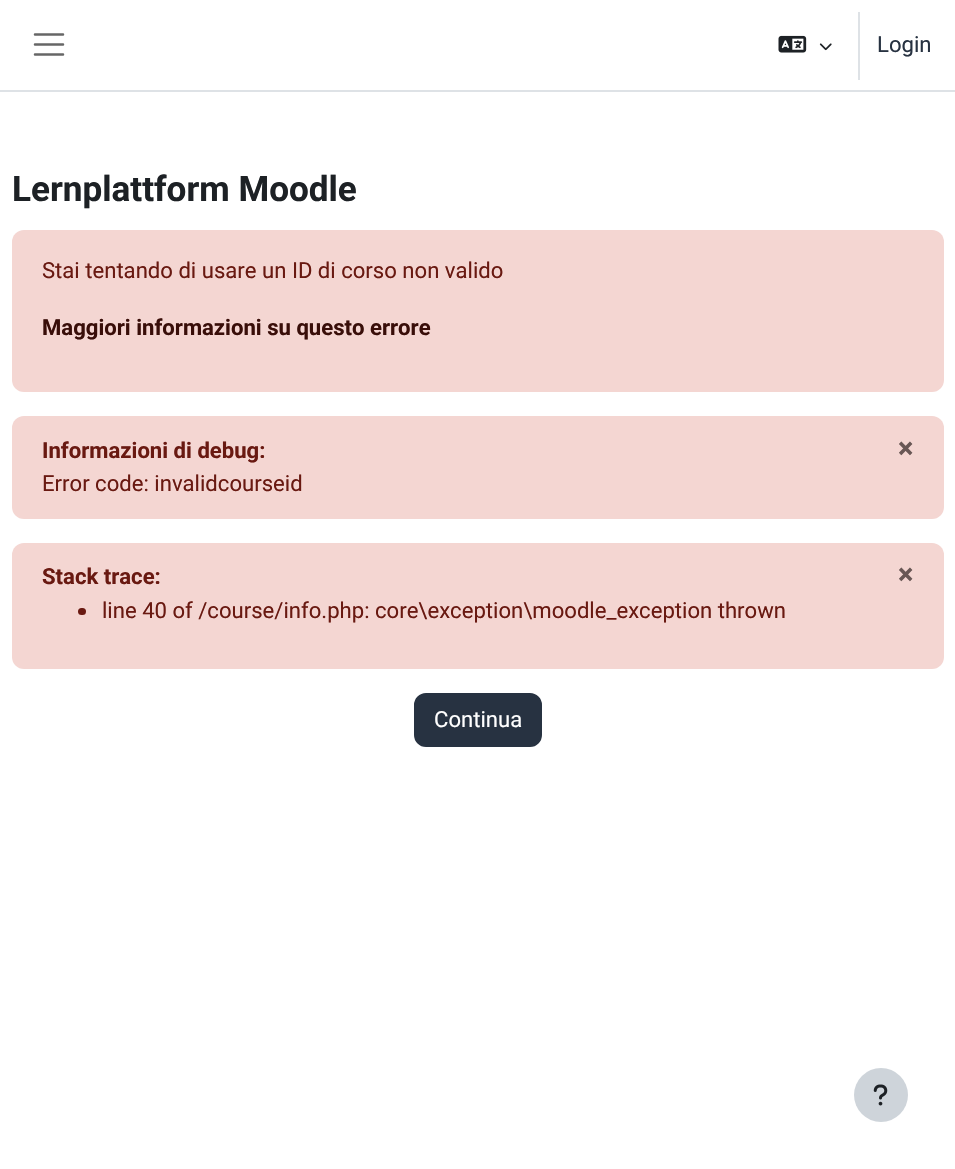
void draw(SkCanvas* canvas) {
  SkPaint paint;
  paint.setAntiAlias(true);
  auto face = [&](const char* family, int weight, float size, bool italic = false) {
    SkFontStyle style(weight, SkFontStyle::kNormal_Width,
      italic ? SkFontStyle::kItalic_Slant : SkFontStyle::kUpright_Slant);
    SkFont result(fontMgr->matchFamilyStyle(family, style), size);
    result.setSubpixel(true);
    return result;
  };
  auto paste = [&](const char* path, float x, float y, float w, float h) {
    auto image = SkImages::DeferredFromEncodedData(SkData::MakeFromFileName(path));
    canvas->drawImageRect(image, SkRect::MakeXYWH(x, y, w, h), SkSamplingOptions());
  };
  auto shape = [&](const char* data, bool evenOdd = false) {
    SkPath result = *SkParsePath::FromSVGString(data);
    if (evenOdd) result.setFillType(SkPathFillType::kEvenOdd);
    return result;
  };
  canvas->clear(0xffffffff);
  paint.setColor(0xffdee2e6);
  canvas->drawRect(SkRect::MakeXYWH(0, 90, 955, 2), paint);
  paint.setStroke(true);
  paint.setStrokeWidth(2.5f);
  paint.setStrokeCap(SkPaint::kRound_Cap);
  paint.setColor(0xff666666);
  canvas->drawPath(shape("M35 34.5H63M35 44.5H63M35 54.5H63"), paint);
  paste("img/1.png", 778, 35, 29, 18);
  paste("img/2.png", 819, 43, 13, 8);
  paint.setStroke(false);
  paint.setColor(0xffdee2e6);
  canvas->drawRect(SkRect::MakeXYWH(858, 12, 2, 68), paint);
  paint.setColor(0xfff4d6d2);
  canvas->drawRoundRect(SkRect::MakeXYWH(12, 230, 932, 162), 12, 12, paint);
  canvas->drawRoundRect(SkRect::MakeXYWH(12, 416, 932, 103), 12, 12, paint);
  canvas->drawRoundRect(SkRect::MakeXYWH(12, 543, 932, 126), 12, 12, paint);
  paint.setColor(0xff691911);
  canvas->drawRoundRect(SkRect::MakeXYWH(78, 608, 8, 7), 3.5f, 3.5f, paint);
  paint.setColor(0xff273241);
  canvas->drawRoundRect(SkRect::MakeXYWH(415, 694, 126, 52), 11, 11, paint);
  paint.setStroke(true);
  paint.setStrokeWidth(2);
  paint.setStrokeCap(SkPaint::kButt_Cap);
  canvas->drawRoundRect(SkRect::MakeXYWH(415, 694, 126, 52), 11, 11, paint);
  paint.setStroke(false);
  paint.setColor(0xffced4da);
  canvas->drawCircle(881, 1095, 27, paint);
  paste("img/3.png", 873, 1084, 15, 22);
  auto f0 = face("Roboto", 400, 22.1f);
  paint.setColor(0xff273241);
  canvas->drawString("Login", 877, 52, f0, paint);
  auto f1 = face("Roboto", 700, 35.1f);
  paint.setColor(0xff1d2125);
  canvas->drawString("Lernplattform Moodle", 12, 201, f1, paint);
  paint.setColor(0xff691911);
  canvas->drawString("Stai tentando di usare un ID di corso non valido", 42, 278, f0, paint);
  auto f2 = face("Roboto", 700, 22.1f);
  paint.setColor(0xff390e09);
  canvas->drawString("Maggiori informazioni su questo errore", 42, 335, f2, paint);
  paint.setColor(0xff691911);
  canvas->drawString("Informazioni di debug:", 42, 458, f2, paint);
  auto f3 = face("Roboto", 700, 29);
  paint.setColor(0xff695755);
  canvas->drawString("×", 898, 458, f3, paint);
  paint.setColor(0xff691911);
  canvas->drawString("Error code: invalidcourseid", 42, 491, f0, paint);
  canvas->drawString("Stack trace:", 42, 584, f2, paint);
  paint.setColor(0xff695755);
  canvas->drawString("×", 898, 584, f3, paint);
  paint.setColor(0xff691911);
  canvas->drawString("line 40 of /course/info.php: core\\exception\\moodle_exception thrown", 102, 618, f0, paint);
  paint.setColor(0xffffffff);
  canvas->drawString("Continua", 434, 727, f0, paint);
}
